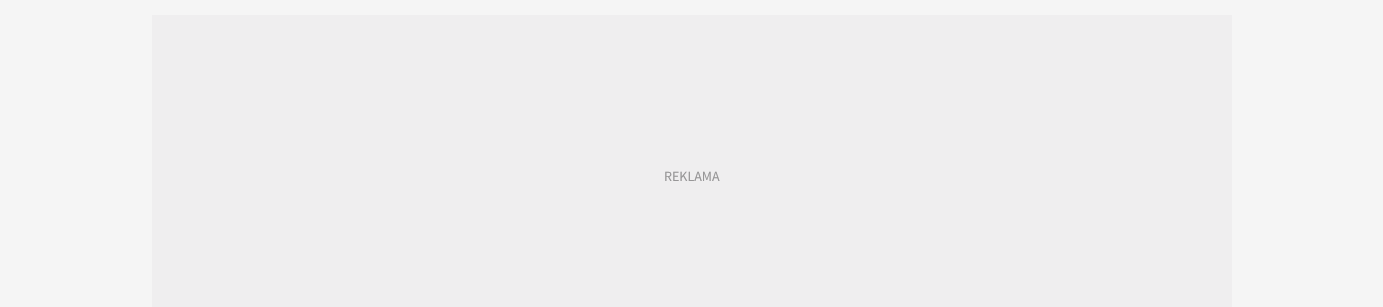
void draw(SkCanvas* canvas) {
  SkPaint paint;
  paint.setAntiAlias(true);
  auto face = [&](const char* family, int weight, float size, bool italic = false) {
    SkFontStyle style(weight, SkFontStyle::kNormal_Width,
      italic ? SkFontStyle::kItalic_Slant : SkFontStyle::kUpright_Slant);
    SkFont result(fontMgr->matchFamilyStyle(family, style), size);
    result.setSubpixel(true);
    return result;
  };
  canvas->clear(0xfff5f5f5);
  paint.setColor(0xffefeeef);
  canvas->drawRect(SkRect::MakeXYWH(152, 15, 1080, 292), paint);
  auto f0 = face("Source Sans Pro", 400, 14);
  paint.setColor(0xff979697);
  canvas->drawString("REKLAMA", 664, 181, f0, paint);
}
